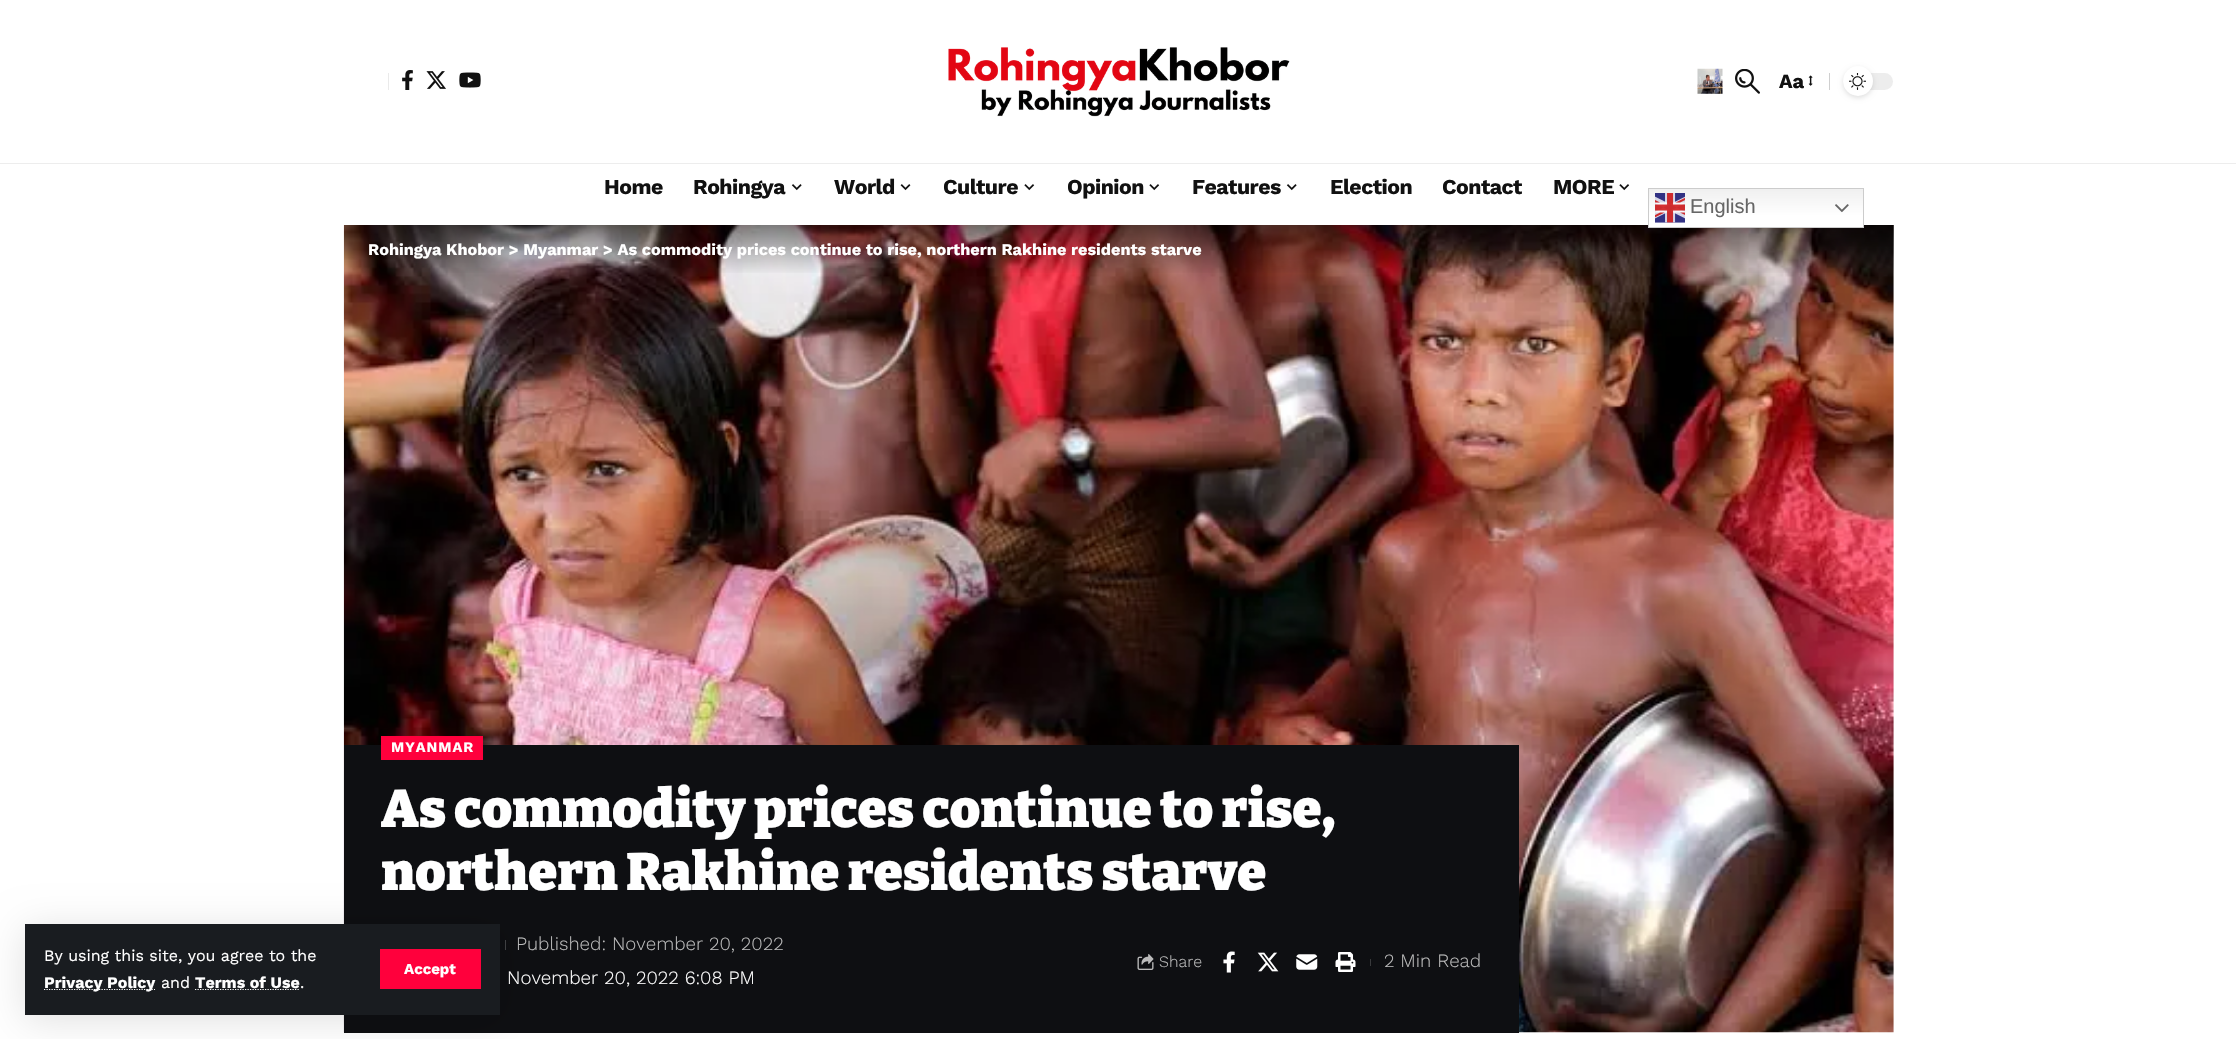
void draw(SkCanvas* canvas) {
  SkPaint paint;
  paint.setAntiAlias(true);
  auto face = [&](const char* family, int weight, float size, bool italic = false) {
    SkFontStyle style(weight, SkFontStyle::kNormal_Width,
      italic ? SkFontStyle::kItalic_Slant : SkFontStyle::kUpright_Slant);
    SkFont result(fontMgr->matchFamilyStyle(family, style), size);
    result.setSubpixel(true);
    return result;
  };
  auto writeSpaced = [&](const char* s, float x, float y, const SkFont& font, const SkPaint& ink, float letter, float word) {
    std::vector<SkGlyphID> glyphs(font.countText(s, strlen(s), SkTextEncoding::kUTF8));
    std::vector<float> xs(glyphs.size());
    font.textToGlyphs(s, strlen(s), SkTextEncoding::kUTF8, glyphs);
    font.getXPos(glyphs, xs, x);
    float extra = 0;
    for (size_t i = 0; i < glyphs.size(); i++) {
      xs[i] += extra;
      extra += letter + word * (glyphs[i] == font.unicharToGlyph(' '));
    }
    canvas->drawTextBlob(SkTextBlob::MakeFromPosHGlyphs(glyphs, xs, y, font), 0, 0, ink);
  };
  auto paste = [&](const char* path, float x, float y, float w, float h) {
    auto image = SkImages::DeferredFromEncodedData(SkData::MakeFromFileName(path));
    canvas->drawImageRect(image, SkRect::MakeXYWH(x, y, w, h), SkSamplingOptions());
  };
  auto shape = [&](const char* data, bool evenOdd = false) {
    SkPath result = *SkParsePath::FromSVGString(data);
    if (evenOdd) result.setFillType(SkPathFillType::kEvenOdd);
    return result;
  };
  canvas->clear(0xffffffff);
  paint.setColor(0xffeaeaea);
  canvas->drawRect(SkRect::MakeXYWH(388, 73, 1, 17), paint);
  paste("img/1.png", 402, 70, 11, 20);
  paste("img/2.png", 426, 71, 20, 18);
  paste("img/3.png", 459, 72, 22, 16);
  paste("img/4.png", 948, 47, 342, 70);
  paste("img/5.png", 1697, 68, 26, 26);
  paste("img/6.png", 1735, 69, 25, 25);
  paste("img/7.png", 1808, 75, 5, 11);
  paint.setColor(0xffcfcfcf);
  canvas->drawRect(SkRect::MakeXYWH(1829, 73, 1, 17), paint);
  paint.setColor(0xffededed);
  canvas->drawRoundRect(SkRect::MakeXYWH(1843, 73, 50, 17), 8.5f, 8.5f, paint);
  paint.setColor(0x1f000000);
  paint.setMaskFilter(SkMaskFilter::MakeBlur(kNormal_SkBlurStyle, 2.5f));
  canvas->drawRoundRect(SkRect::MakeXYWH(1843, 68, 30, 30), 15, 15, paint);
  paint.setMaskFilter(nullptr);
  paint.setColor(0xffffffff);
  canvas->drawCircle(1858, 81, 15, paint);
  paste("img/8.png", 1849, 73, 17, 17);
  paint.setColor(0xffededed);
  canvas->drawRect(SkRect::MakeXYWH(0, 163, 2236, 1), paint);
  paste("img/9.png", 791, 184, 11, 7);
  paste("img/10.png", 900, 184, 11, 7);
  paste("img/11.png", 1024, 184, 11, 7);
  paste("img/11.png", 1149, 184, 11, 7);
  paste("img/9.png", 1286, 184, 11, 7);
  paste("img/11.png", 1619, 184, 11, 7);
  paste("img/14.png", 343, 225, 1551, 808);
  {
    const SkColor colors[] = {0x00000000, 0x80000000};
    const float stops[] = {0, 1};
    const SkPoint ends[] = {{1119, 275}, {1119, 225}};
    paint.setShader(SkGradientShader::MakeLinear(ends, colors, stops, 2, SkTileMode::kClamp));
    paint.setAlpha(255);
  }
  canvas->drawRect(SkRect::MakeXYWH(344, 225, 1550, 48), paint);
  {
    const SkColor colors[] = {0xffefefef, 0xffffffff};
    const float stops[] = {0, 0.7f};
    const SkPoint ends[] = {{1756, 188}, {1756, 228}};
    paint.setShader(SkGradientShader::MakeLinear(ends, colors, stops, 2, SkTileMode::kClamp));
    paint.setAlpha(255);
  }
  canvas->drawRect(SkRect::MakeXYWH(1649, 189, 214, 38), paint);
  paint.setStroke(true);
  paint.setStrokeWidth(1);
  paint.setShader(nullptr);
  paint.setColor(0xffcccccc);
  canvas->drawRect(SkRect::MakeXYWH(1648.5f, 188.5f, 215, 39), paint);
  paste("img/12.png", 1655, 193, 30, 30);
  paste("img/13.png", 1835, 204, 14, 9);
  paint.setStroke(false);
  paint.setColor(0xff0e0f12);
  canvas->drawRect(SkRect::MakeXYWH(344, 745, 1175, 288), paint);
  paint.setColor(0xff424345);
  canvas->drawRect(SkRect::MakeXYWH(505, 940, 1, 10), paint);
  paint.setColor(0x1f000000);
  paint.setMaskFilter(SkMaskFilter::MakeBlur(kNormal_SkBlurStyle, 19));
  canvas->drawRect(SkRect::MakeXYWH(25, 929, 475, 91), paint);
  paint.setMaskFilter(nullptr);
  paint.setColor(0xff191c20);
  canvas->drawRect(SkRect::MakeXYWH(25, 924, 475, 91), paint);
  paint.setStroke(true);
  paint.setStrokeWidth(1.2f);
  paint.setColor(0xffffffff);
  paint.setPathEffect(SkDashPathEffect::Make({{1.25f, 1.25f}}, 0));
  canvas->drawPath(shape("M44 989.5H155"), paint);
  paint.setPathEffect(nullptr);
  paint.setPathEffect(SkDashPathEffect::Make({{1.25f, 1.25f}}, 0));
  canvas->drawPath(shape("M195 989.5H299.5"), paint);
  paint.setPathEffect(nullptr);
  paint.setStroke(false);
  paint.setColor(0xffff003c);
  canvas->drawRect(SkRect::MakeXYWH(380, 949, 101, 40), paint);
  canvas->drawRect(SkRect::MakeXYWH(381, 736, 102, 24), paint);
  paste("img/15.png", 1137, 954, 17, 16);
  paste("img/16.png", 1223, 951, 12, 22);
  paste("img/17.png", 1257, 952, 22, 20);
  paste("img/18.png", 1296, 954, 22, 16);
  paste("img/19.png", 1335, 952, 21, 20);
  paint.setColor(0xff393a3c);
  canvas->drawRect(SkRect::MakeXYWH(1370, 959, 1, 7), paint);
  auto f0 = face("Work Sans", 700, 20);
  paint.setColor(0xff111111);
  canvas->drawString("Aa", 1779, 88, f0, paint);
  auto f1 = face("Work Sans", 700, 21.25f);
  {
    const struct { const char* s; float x, y; } items[] = {
      {"Home", 604, 194},
      {"Rohingya", 693, 194},
      {"World", 834, 194},
      {"Culture", 943, 194},
      {"Opinion", 1067, 194},
      {"Features", 1192, 194},
      {"Election", 1330, 194},
      {"Contact", 1442, 194},
      {"MORE", 1553, 194},
    };
    for (auto [s, x, y] : items) {
      writeSpaced(s, x, y, f1, paint, -0.5f, 0);
    }
  }
  auto f2 = face("Liberation Sans", 400, 20);
  paint.setColor(0xff666666);
  canvas->drawString("English", 1690, 213, f2, paint);
  auto f3 = face("Work Sans", 400, 16);
  paint.setColor(0xffffffff);
  canvas->drawString("By using this site, you agree to the", 44, 961, f3, paint);
  auto f4 = face("Work Sans", 700, 16);
  canvas->drawString("Privacy Policy", 44, 988, f4, paint);
  canvas->drawString("and", 161, 988, f3, paint);
  canvas->drawString("Terms of Use", 195, 988, f4, paint);
  canvas->drawString(".", 300, 988, f3, paint);
  auto f5 = face("Work Sans", 700, 15);
  canvas->drawString("Accept", 404, 974, f5, paint);
  auto f6 = face("Work Sans", 700, 16.25f);
  canvas->drawString("Rohingya Khobor > Myanmar > As commodity prices continue to rise, northern Rakhine residents starve", 368, 255, f6, paint);
  auto f7 = face("Work Sans", 700, 14.5f);
  writeSpaced("MYANMAR", 391, 752, f7, paint, 1, 0);
  auto f8 = face("Bitter", 900, 52.5f);
  canvas->drawString("As commodity prices continue to rise,", 381, 827, f8, paint);
  canvas->drawString("northern Rakhine residents starve", 381, 890, f8, paint);
  auto f9 = face("Work Sans", 300, 18.75f);
  paint.setColor(0xffbbbbbb);
  canvas->drawString("Published: November 20, 2022", 516, 950, f9, paint);
  paint.setColor(0xffffffff);
  canvas->drawString("November 20, 2022 6:08 PM", 507, 984, f9, paint);
  auto f10 = face("Work Sans", 300, 16);
  paint.setColor(0xffbbbbbb);
  canvas->drawString("Share", 1159, 967, f10, paint);
  canvas->drawString("2 Min Read", 1384, 967, f9, paint);
}
